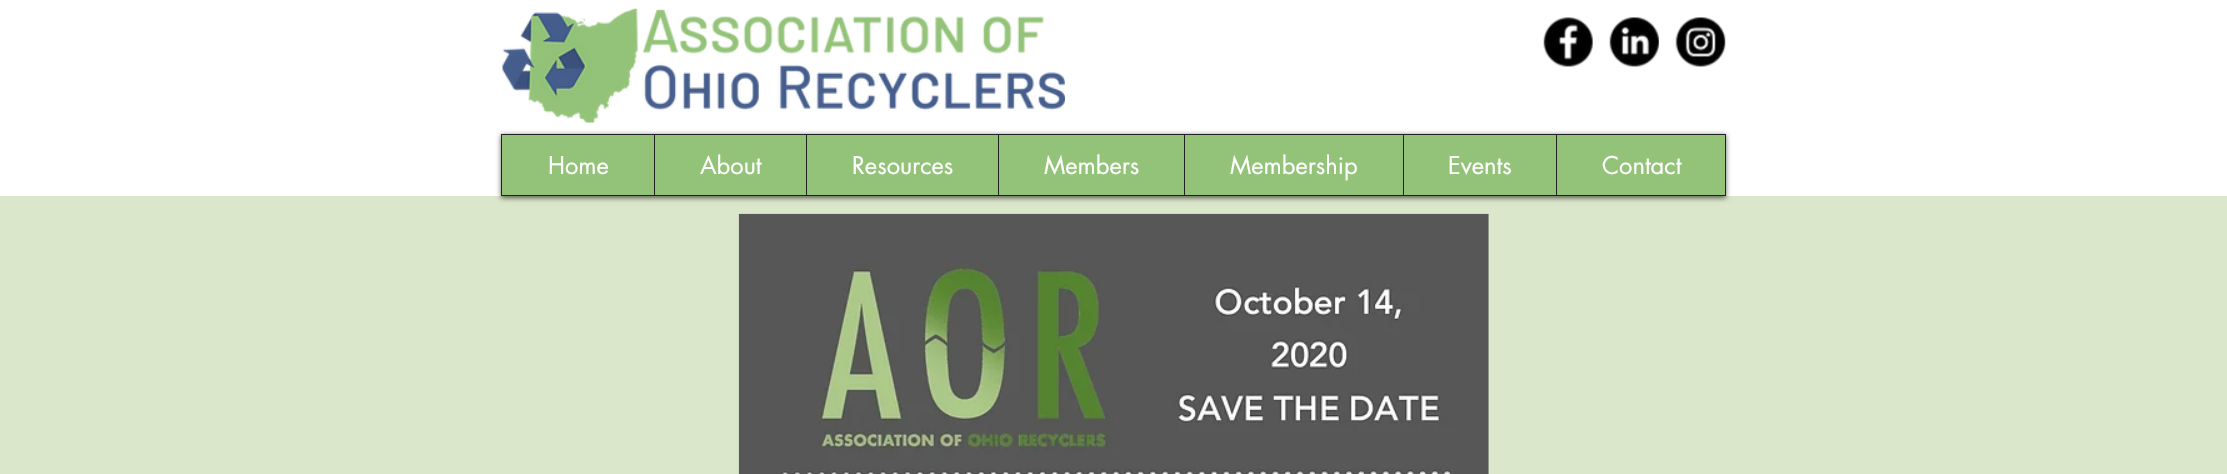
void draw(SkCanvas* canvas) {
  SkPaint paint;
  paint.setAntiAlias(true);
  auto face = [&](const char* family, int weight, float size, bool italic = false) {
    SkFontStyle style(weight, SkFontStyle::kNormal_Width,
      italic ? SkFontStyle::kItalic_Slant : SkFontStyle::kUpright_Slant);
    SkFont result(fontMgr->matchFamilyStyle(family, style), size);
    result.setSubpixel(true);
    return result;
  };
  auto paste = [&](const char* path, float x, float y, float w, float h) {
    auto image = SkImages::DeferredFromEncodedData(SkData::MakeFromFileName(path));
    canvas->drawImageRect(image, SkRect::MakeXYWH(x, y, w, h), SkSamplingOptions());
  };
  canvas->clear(0xffdae7ca);
  paint.setColor(0xffffffff);
  canvas->drawRect(SkRect::MakeXYWH(0, 0, 2227, 196), paint);
  paste("img/1.png", 502, 8, 563, 115);
  paste("img/2.png", 1543, 17, 50, 50);
  paste("img/3.png", 1609, 17, 50, 50);
  paste("img/4.png", 1675, 17, 51, 50);
  paint.setColor(0x99000000);
  paint.setMaskFilter(SkMaskFilter::MakeBlur(kNormal_SkBlurStyle, 2.5f));
  canvas->drawRect(SkRect::MakeXYWH(501, 135, 1225, 63), paint);
  paint.setMaskFilter(nullptr);
  paint.setColor(0xff93c378);
  canvas->drawRect(SkRect::MakeXYWH(501.5f, 134.5f, 1224, 61), paint);
  paint.setStroke(true);
  paint.setStrokeWidth(1);
  paint.setColor(0xff212121);
  canvas->drawRect(SkRect::MakeXYWH(501.5f, 134.5f, 1224, 61), paint);
  paint.setStroke(false);
  {
    const struct { float x, y, w, h; SkColor color; } items[] = {
      {654, 135, 1, 60, 0xff212121},
      {806, 135, 1, 60, 0xff212121},
      {998, 135, 1, 60, 0xff212121},
      {1184, 135, 1, 60, 0xff212121},
      {1403, 135, 1, 60, 0xff212121},
      {1556, 135, 1, 60, 0xff212121},
    };
    for (auto [x, y, w, h, color] : items) {
      paint.setColor(color);
      canvas->drawRect(SkRect::MakeXYWH(x, y, w, h), paint);
    }
  }
  paste("img/5.png", 738, 213, 751, 261);
  auto f0 = face("futura", 400, 23.75f);
  paint.setColor(0xffffffff);
  {
    const struct { const char* s; float x, y; } items[] = {
      {"Home", 548, 174},
      {"About", 700, 174},
      {"Resources", 852, 174},
      {"Members", 1044, 174},
      {"Membership", 1230, 174},
      {"Events", 1448, 174},
      {"Contact", 1602, 174},
    };
    for (auto [s, x, y] : items) {
      canvas->drawString(s, x, y, f0, paint);
    }
  }
}
